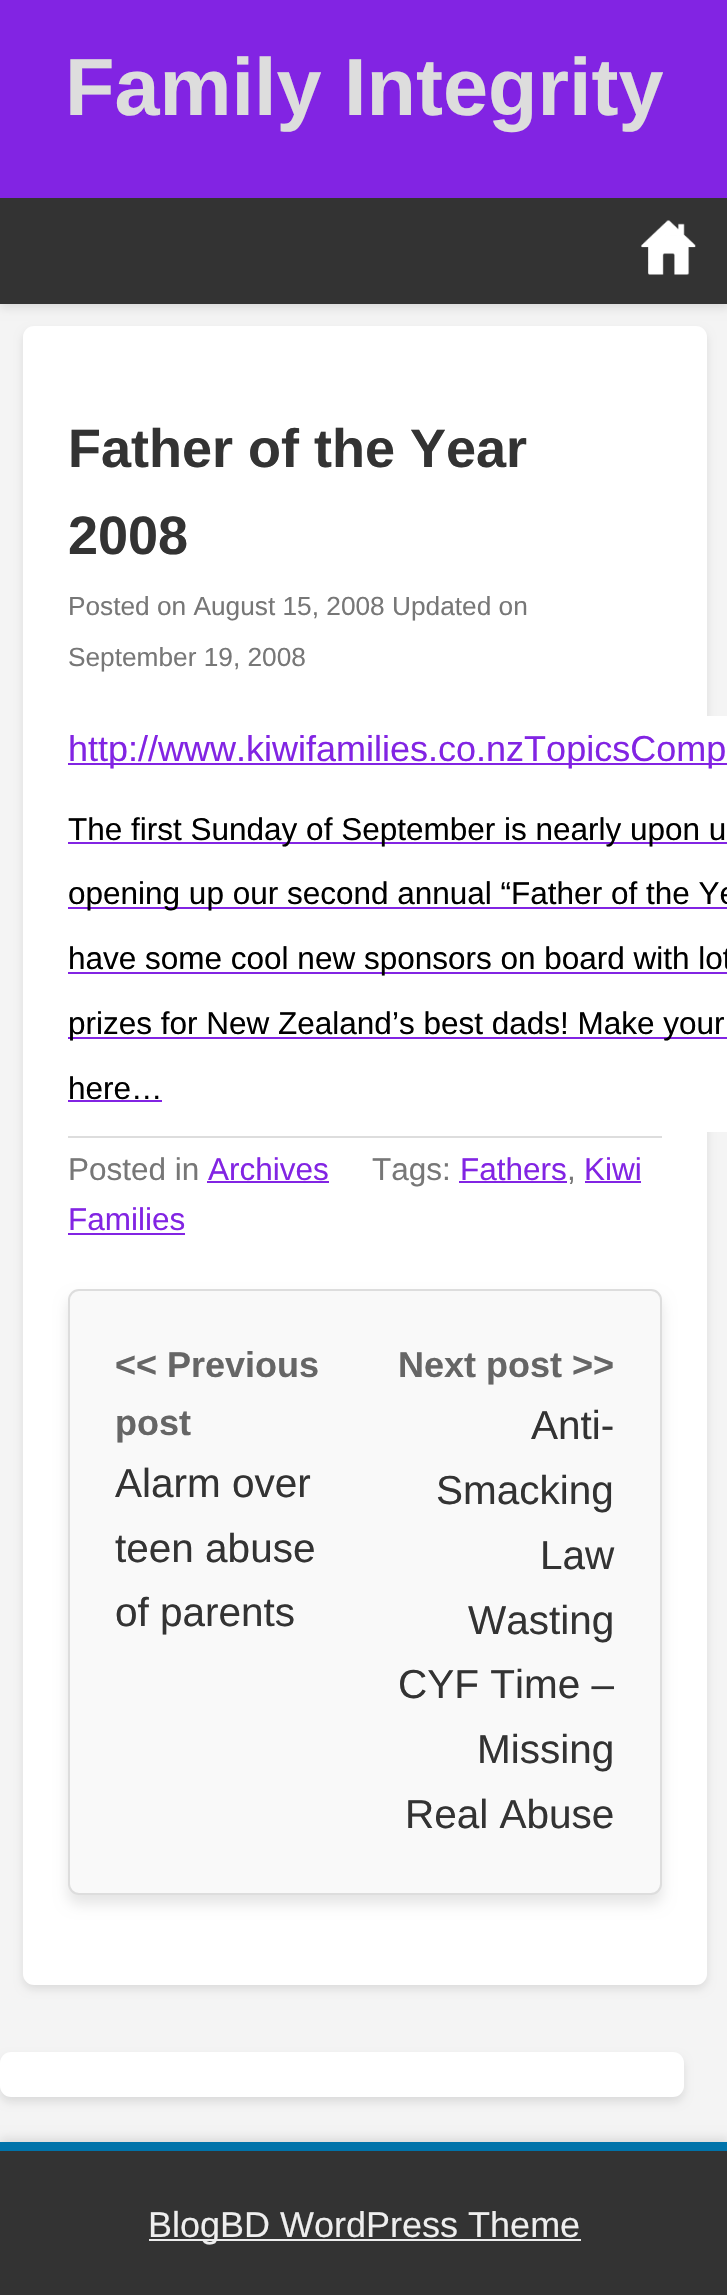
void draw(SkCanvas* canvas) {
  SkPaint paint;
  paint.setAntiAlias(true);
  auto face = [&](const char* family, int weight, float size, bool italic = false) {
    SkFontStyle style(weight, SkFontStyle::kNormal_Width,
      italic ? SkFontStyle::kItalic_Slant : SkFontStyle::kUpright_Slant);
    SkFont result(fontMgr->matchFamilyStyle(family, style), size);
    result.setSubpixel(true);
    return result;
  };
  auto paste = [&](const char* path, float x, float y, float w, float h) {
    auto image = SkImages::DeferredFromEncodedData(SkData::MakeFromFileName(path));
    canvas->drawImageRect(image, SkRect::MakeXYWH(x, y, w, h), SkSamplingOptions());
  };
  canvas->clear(0xfff4f4f4);
  paint.setColor(0x1a000000);
  paint.setMaskFilter(SkMaskFilter::MakeBlur(kNormal_SkBlurStyle, 4.5f));
  canvas->drawRect(SkRect::MakeXYWH(0, 5, 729, 303), paint);
  paint.setMaskFilter(nullptr);
  paint.setColor(0xff8224e3);
  canvas->drawRect(SkRect::MakeXYWH(0, 0, 727, 198), paint);
  paint.setColor(0xff333333);
  canvas->drawRect(SkRect::MakeXYWH(0, 198, 727, 106), paint);
  paste("img/1.png", 641, 220, 55, 55);
  paint.setColor(0x1a000000);
  paint.setMaskFilter(SkMaskFilter::MakeBlur(kNormal_SkBlurStyle, 4.5f));
  canvas->drawRoundRect(SkRect::MakeXYWH(23, 331, 684, 1658), 11, 11, paint);
  paint.setMaskFilter(nullptr);
  paint.setColor(0xffffffff);
  canvas->drawRoundRect(SkRect::MakeXYWH(23, 326, 684, 1659), 11, 11, paint);
  {
    const struct { float x, y, w, h; SkColor color; } items[] = {
      {707, 716, 20, 416, 0xffffffff},
      {68, 763, 659, 2, 0xff8224e3},
      {68, 842, 659, 2, 0xff8224e3},
      {68, 907, 659, 2, 0xff8224e3},
      {68, 972, 659, 2, 0xff8224e3},
      {68, 1037, 659, 2, 0xff8224e3},
      {68, 1100, 94, 2, 0xff8224e3},
      {68, 1136, 594, 2, 0xffdddddd},
      {207, 1181, 122, 2, 0xff8224e3},
      {459, 1181, 108, 2, 0xff8224e3},
      {585, 1181, 56, 2, 0xff8224e3},
      {68, 1233, 117, 2, 0xff8224e3},
    };
    for (auto [x, y, w, h, color] : items) {
      paint.setColor(color);
      canvas->drawRect(SkRect::MakeXYWH(x, y, w, h), paint);
    }
  }
  paint.setColor(0x1a000000);
  paint.setMaskFilter(SkMaskFilter::MakeBlur(kNormal_SkBlurStyle, 7));
  canvas->drawRoundRect(SkRect::MakeXYWH(68, 1298, 594, 606), 11, 11, paint);
  paint.setMaskFilter(nullptr);
  paint.setColor(0xfff9f9f9);
  canvas->drawRoundRect(SkRect::MakeXYWH(69, 1290, 592, 604), 10, 10, paint);
  paint.setStroke(true);
  paint.setStrokeWidth(2);
  paint.setColor(0xffdddddd);
  canvas->drawRoundRect(SkRect::MakeXYWH(69, 1290, 592, 604), 10, 10, paint);
  paint.setStroke(false);
  paint.setColor(0x1a000000);
  paint.setMaskFilter(SkMaskFilter::MakeBlur(kNormal_SkBlurStyle, 4.5f));
  canvas->drawRoundRect(SkRect::MakeXYWH(0, 2057, 684, 45), 11, 11, paint);
  paint.setMaskFilter(nullptr);
  paint.setColor(0xffffffff);
  canvas->drawRoundRect(SkRect::MakeXYWH(0, 2052, 684, 45), 11, 11, paint);
  paint.setColor(0x1a000000);
  paint.setMaskFilter(SkMaskFilter::MakeBlur(kNormal_SkBlurStyle, 4.5f));
  canvas->drawRect(SkRect::MakeXYWH(0, 2138, 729, 157), paint);
  paint.setMaskFilter(nullptr);
  {
    const struct { float x, y, w, h; SkColor color; } items[] = {
      {0, 2151, 727, 144, 0xff333333},
      {0, 2142, 727, 9, 0xff0073aa},
      {149, 2239, 432, 2, 0xffeeeeee},
    };
    for (auto [x, y, w, h, color] : items) {
      paint.setColor(color);
      canvas->drawRect(SkRect::MakeXYWH(x, y, w, h), paint);
    }
  }
  auto f0 = face("Liberation Sans", 700, 81);
  paint.setColor(0xffdddddd);
  canvas->drawString("Family Integrity", 65, 115, f0, paint);
  auto f1 = face("Liberation Sans", 700, 54);
  paint.setColor(0xff333333);
  canvas->drawString("Father of the Year", 68, 467, f1, paint);
  canvas->drawString("2008", 68, 554, f1, paint);
  auto f2 = face("Liberation Sans", 400, 26.25f);
  paint.setColor(0xff777777);
  canvas->drawString("Posted on August 15, 2008 Updated on", 68, 615, f2, paint);
  canvas->drawString("September 19, 2008", 68, 666, f2, paint);
  auto f3 = face("Liberation Sans", 400, 36);
  paint.setColor(0xff8224e3);
  canvas->drawString("http://www.kiwifamilies.co.nzTopicsComp", 68, 761, f3, paint);
  auto f4 = face("Liberation Sans", 400, 31.5f);
  paint.setColor(0xff000000);
  {
    const struct { const char* s; float x, y; } items[] = {
      {"The first Sunday of September is nearly upon u", 68, 840},
      {"opening up our second annual “Father of the Ye", 68, 904},
      {"have some cool new sponsors on board with lot", 68, 969},
      {"prizes for New Zealand’s best dads! Make your", 68, 1034},
      {"here…", 68, 1099},
    };
    for (auto [s, x, y] : items) {
      canvas->drawString(s, x, y, f4, paint);
    }
  }
  paint.setColor(0xff777777);
  canvas->drawString("Posted in", 68, 1180, f4, paint);
  paint.setColor(0xff8224e3);
  canvas->drawString("Archives", 208, 1180, f4, paint);
  paint.setColor(0xff777777);
  canvas->drawString("Tags:", 372, 1180, f4, paint);
  paint.setColor(0xff8224e3);
  canvas->drawString("Fathers", 460, 1180, f4, paint);
  paint.setColor(0xff777777);
  canvas->drawString(",", 567, 1180, f4, paint);
  paint.setColor(0xff8224e3);
  canvas->drawString("Kiwi", 584, 1180, f4, paint);
  canvas->drawString("Families", 68, 1230, f4, paint);
  auto f5 = face("Liberation Sans", 700, 36);
  paint.setColor(0xff666666);
  canvas->drawString("<< Previous", 115, 1377, f5, paint);
  canvas->drawString("post", 115, 1435, f5, paint);
  auto f6 = face("Liberation Sans", 400, 40.5f);
  paint.setColor(0xff333333);
  {
    const struct { const char* s; float x, y; } items[] = {
      {"Alarm over", 115, 1497},
      {"teen abuse", 115, 1562},
      {"of parents", 115, 1626},
    };
    for (auto [s, x, y] : items) {
      canvas->drawString(s, x, y, f6, paint);
    }
  }
  paint.setColor(0xff666666);
  canvas->drawString("Next post >>", 398, 1377, f5, paint);
  paint.setColor(0xff333333);
  {
    const struct { const char* s; float x, y; } items[] = {
      {"Anti-", 531, 1439},
      {"Smacking", 436, 1504},
      {"Law", 540, 1569},
      {"Wasting", 468, 1634},
      {"CYF Time –", 398, 1698},
      {"Missing", 477, 1763},
      {"Real Abuse", 405, 1828},
    };
    for (auto [s, x, y] : items) {
      canvas->drawString(s, x, y, f6, paint);
    }
  }
  paint.setColor(0xffeeeeee);
  canvas->drawString("BlogBD WordPress Theme", 148, 2237, f3, paint);
}
